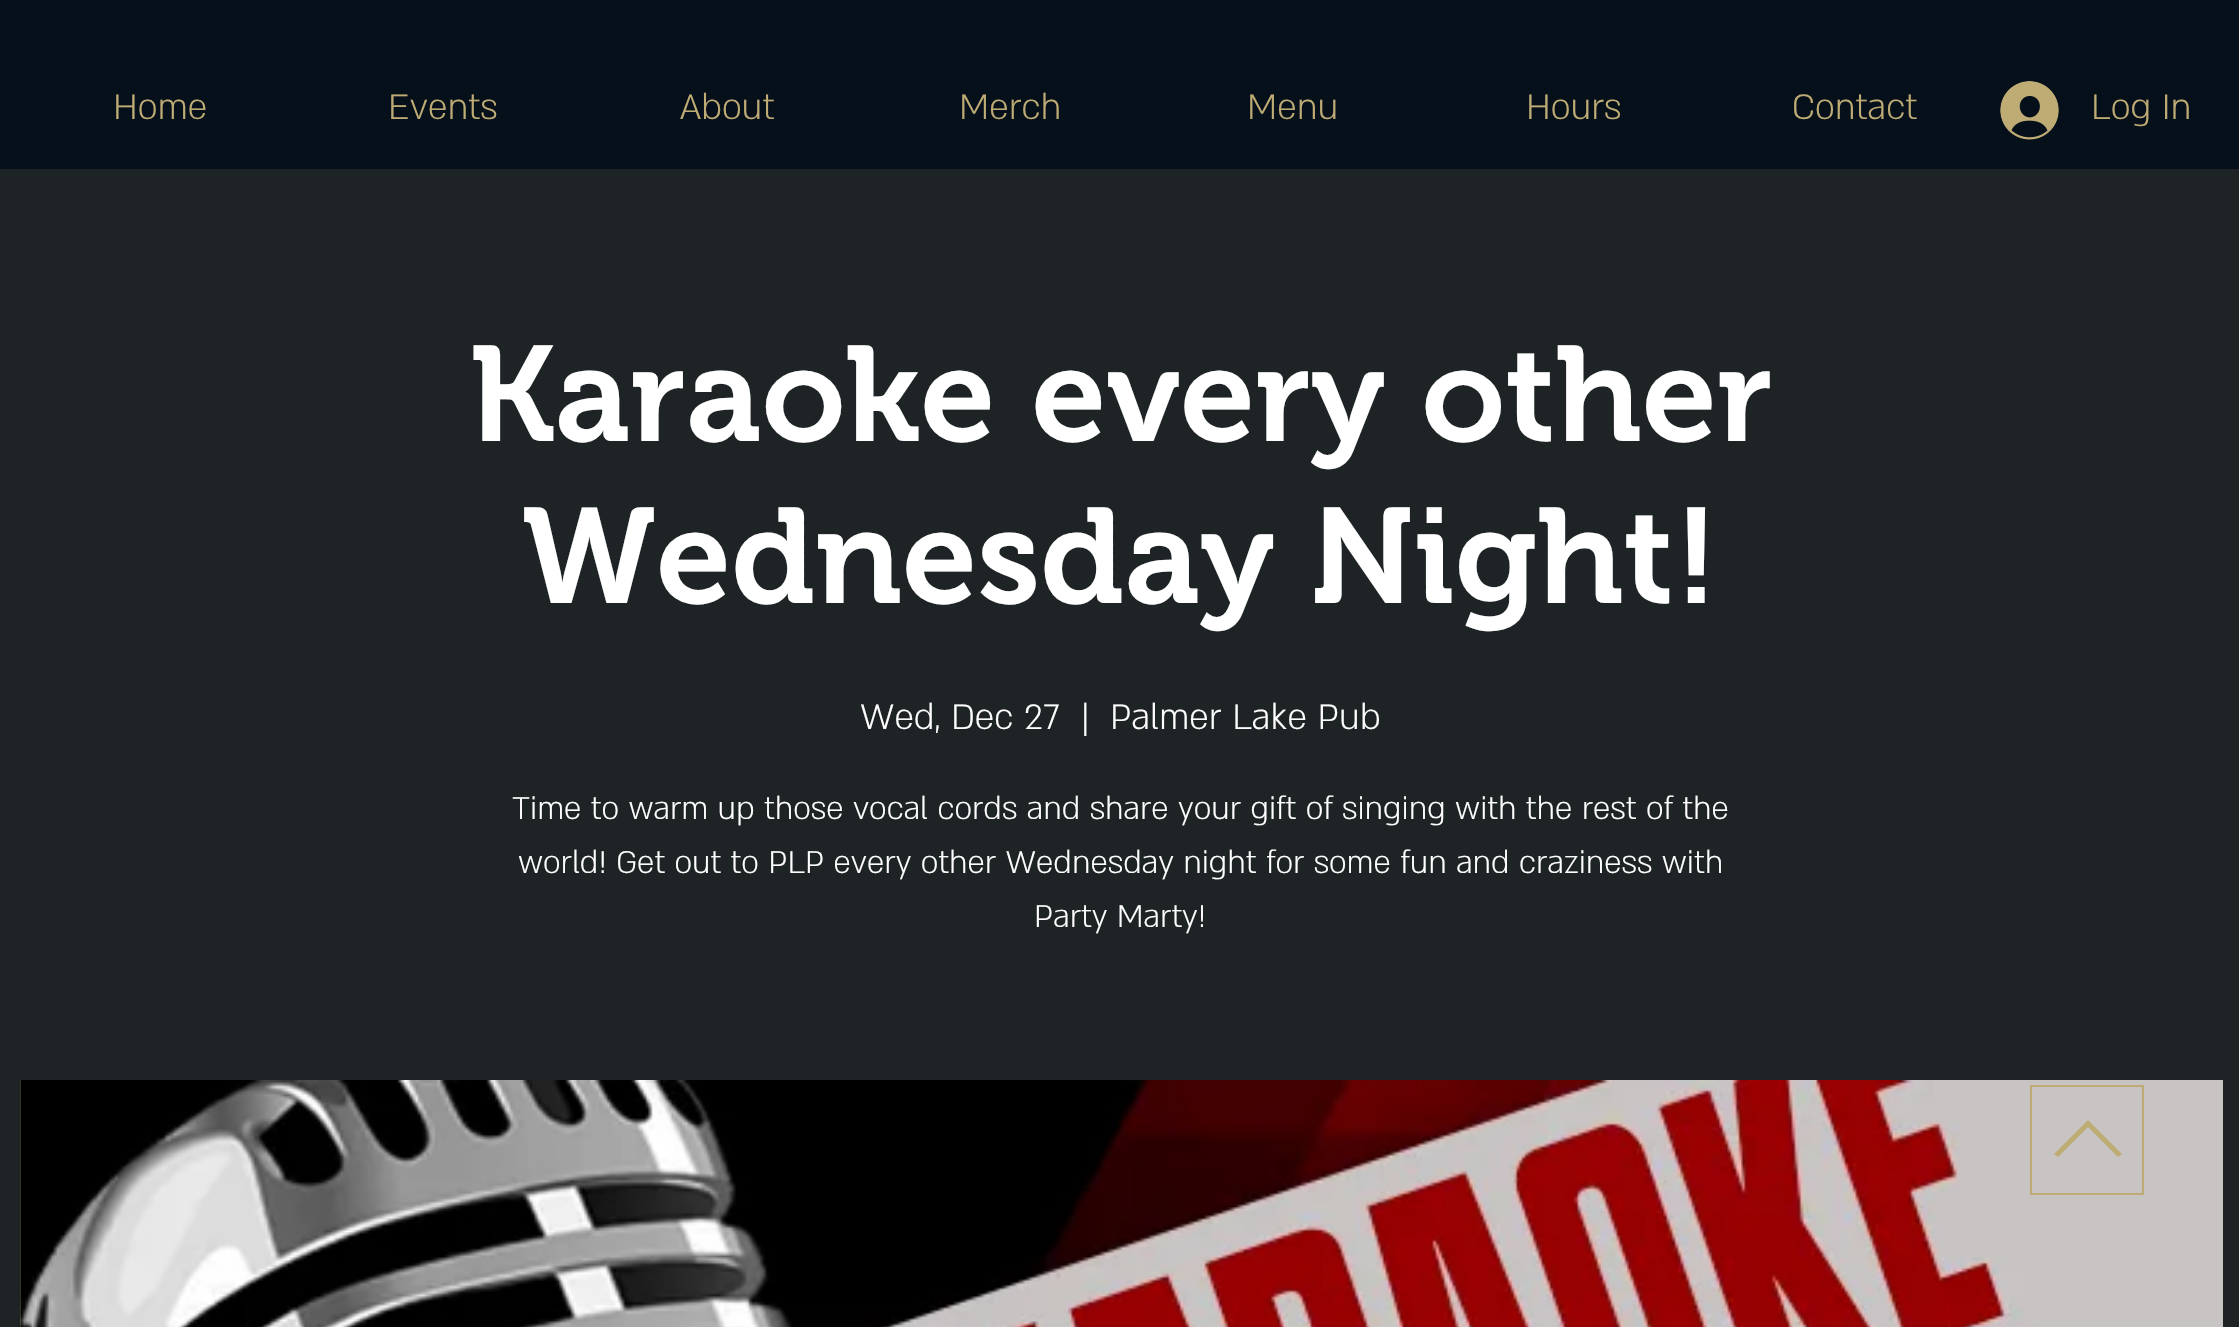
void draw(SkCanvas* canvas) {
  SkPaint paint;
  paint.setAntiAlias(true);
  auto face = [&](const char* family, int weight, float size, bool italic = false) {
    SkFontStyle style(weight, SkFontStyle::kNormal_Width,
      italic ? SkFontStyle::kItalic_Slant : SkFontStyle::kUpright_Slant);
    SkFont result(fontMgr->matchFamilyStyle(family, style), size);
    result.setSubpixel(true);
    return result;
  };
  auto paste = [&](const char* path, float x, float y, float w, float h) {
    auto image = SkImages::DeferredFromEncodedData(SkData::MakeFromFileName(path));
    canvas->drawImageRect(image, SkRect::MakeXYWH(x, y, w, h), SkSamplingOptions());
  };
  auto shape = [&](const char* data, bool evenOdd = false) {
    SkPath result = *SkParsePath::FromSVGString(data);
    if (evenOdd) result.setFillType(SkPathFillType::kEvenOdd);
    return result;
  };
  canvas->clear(0xff06101b);
  paste("img/1.png", 2000, 81, 59, 59);
  paint.setColor(0xff1e2426);
  canvas->drawRect(SkRect::MakeXYWH(0, 169, 2239, 1158), paint);
  paint.setColor(0xff7f734e);
  canvas->drawRect(SkRect::MakeXYWH(20, 1080, 1, 247), paint);
  paste("img/2.png", 20, 1080, 2203, 247);
  paint.setStroke(true);
  paint.setStrokeWidth(2);
  paint.setColor(0xffbeac74);
  canvas->drawRect(SkRect::MakeXYWH(2031, 1086, 112, 108), paint);
  paint.setStroke(false);
  canvas->drawPath(shape("M2054 1154L2058 1157L2088 1127L2118 1157L2122 1154L2088 1120Z"), paint);
  auto f0 = face("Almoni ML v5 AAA", 300, 40.5f);
  {
    const struct { const char* s; float x, y; } items[] = {
      {"Home", 113, 119},
      {"Events", 388, 119},
      {"About", 680, 119},
      {"Merch", 959, 119},
      {"Menu", 1247, 119},
      {"Hours", 1526, 119},
      {"Contact", 1792, 119},
      {"Log In", 2091, 119},
    };
    for (auto [s, x, y] : items) {
      canvas->drawString(s, x, y, f0, paint);
    }
  }
  auto f1 = face("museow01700", 600, 135);
  paint.setColor(0xffffffff);
  canvas->drawString("Karaoke every other", 469, 441, f1, paint);
  canvas->drawString("Wednesday Night!", 522, 603, f1, paint);
  {
    const struct { const char* s; float x, y; } items[] = {
      {"Wed, Dec 27", 860, 729},
      {"|", 1081, 729},
      {"Palmer Lake Pub", 1110, 729},
    };
    for (auto [s, x, y] : items) {
      canvas->drawString(s, x, y, f0, paint);
    }
  }
  auto f2 = face("Almoni ML v5 AAA", 300, 36);
  {
    const struct { const char* s; float x, y; } items[] = {
      {"Time to warm up those vocal cords and share your gift of singing with the rest of the", 512, 819},
      {"world! Get out to PLP every other Wednesday night for some fun and craziness with", 518, 873},
      {"Party Marty!", 1034, 927},
    };
    for (auto [s, x, y] : items) {
      canvas->drawString(s, x, y, f2, paint);
    }
  }
}
